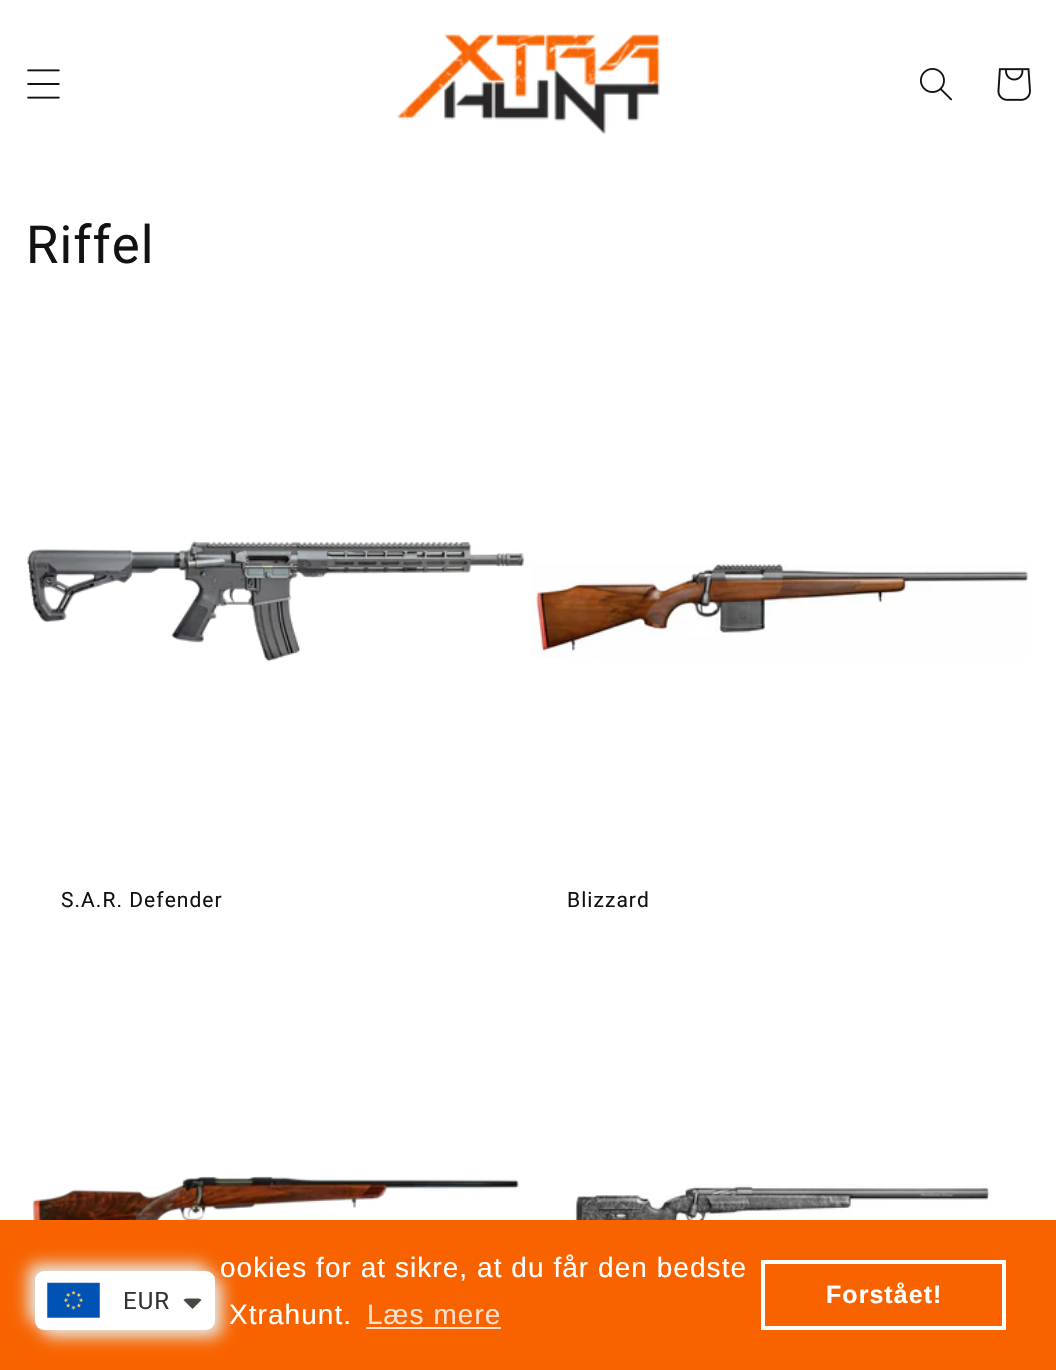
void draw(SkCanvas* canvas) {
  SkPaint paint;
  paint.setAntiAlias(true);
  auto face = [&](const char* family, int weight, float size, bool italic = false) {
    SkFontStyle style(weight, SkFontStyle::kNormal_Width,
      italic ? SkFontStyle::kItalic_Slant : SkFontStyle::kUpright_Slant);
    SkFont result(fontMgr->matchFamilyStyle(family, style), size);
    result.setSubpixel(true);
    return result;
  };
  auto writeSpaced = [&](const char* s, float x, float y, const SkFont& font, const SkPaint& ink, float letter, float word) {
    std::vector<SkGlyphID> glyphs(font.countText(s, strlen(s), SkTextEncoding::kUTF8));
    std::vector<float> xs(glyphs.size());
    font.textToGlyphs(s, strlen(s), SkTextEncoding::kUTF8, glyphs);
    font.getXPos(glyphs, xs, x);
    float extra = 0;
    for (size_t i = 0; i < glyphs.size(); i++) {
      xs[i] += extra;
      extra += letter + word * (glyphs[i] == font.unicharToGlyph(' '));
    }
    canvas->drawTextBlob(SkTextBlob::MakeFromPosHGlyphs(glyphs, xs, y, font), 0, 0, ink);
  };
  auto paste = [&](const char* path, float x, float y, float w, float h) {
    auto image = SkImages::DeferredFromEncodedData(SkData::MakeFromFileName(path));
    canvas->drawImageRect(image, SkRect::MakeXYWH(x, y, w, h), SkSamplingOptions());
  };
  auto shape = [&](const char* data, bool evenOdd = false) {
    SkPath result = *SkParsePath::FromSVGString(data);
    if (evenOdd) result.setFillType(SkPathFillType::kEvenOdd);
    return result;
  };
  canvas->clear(0xffffffff);
  paste("img/1.png", 27, 69, 33, 30);
  paste("img/2.png", 397, 33, 263, 102);
  paste("img/3.png", 920, 68, 32, 33);
  paste("img/4.png", 997, 68, 34, 33);
  paste("img/5.png", 27, 540, 498, 122);
  paste("img/6.png", 532, 564, 497, 94);
  paste("img/7.png", 32, 1176, 487, 44);
  paste("img/8.png", 572, 1184, 420, 36);
  paint.setColor(0xfff86300);
  canvas->drawRect(SkRect::MakeXYWH(0, 1220, 1056, 150), paint);
  paint.setColor(0xffe8e8e2);
  paint.setMaskFilter(SkMaskFilter::MakeBlur(kNormal_SkBlurStyle, 8));
  canvas->drawRoundRect(SkRect::MakeXYWH(28, 1264, 180, 59), 9, 9, paint);
  paint.setMaskFilter(nullptr);
  paint.setMaskFilter(SkMaskFilter::MakeBlur(kNormal_SkBlurStyle, 8));
  canvas->drawRoundRect(SkRect::MakeXYWH(42, 1278, 180, 59), 9, 9, paint);
  paint.setMaskFilter(nullptr);
  paint.setColor(0xffffffff);
  canvas->drawRoundRect(SkRect::MakeXYWH(35, 1271, 180, 59), 9, 9, paint);
  paste("img/9.png", 47, 1282, 53, 36);
  paint.setColor(0xff474942);
  canvas->drawPath(shape("M187 1298.5C186 1298.5 184.5 1299 183.5 1300L192.5 1309L201.5 1300C200.5 1299 199 1298.5 198 1298.5Z"), paint);
  paint.setColor(0xfffee0cc);
  canvas->drawRect(SkRect::MakeXYWH(366, 1327, 135, 2), paint);
  paint.setStroke(true);
  paint.setStrokeWidth(4);
  paint.setColor(0xffffffff);
  canvas->drawRect(SkRect::MakeXYWH(763, 1262, 241, 66), paint);
  auto f0 = face("Roboto", 400, 52.5f);
  paint.setStroke(false);
  paint.setColor(0xff121212);
  writeSpaced("Riffel", 26, 263, f0, paint, 1.05f, 0);
  auto f1 = face("Roboto", 400, 21);
  writeSpaced("S.A.R. Defender", 61, 907, f1, paint, 1.05f, 0);
  writeSpaced("Blizzard", 567, 907, f1, paint, 1.05f, 0);
  auto f2 = face("Roboto", 400, 24);
  paint.setColor(0xff333333);
  writeSpaced("EUR", 123, 1309, f2, paint, 1.05f, 0);
  auto f3 = face("Liberation Sans", 400, 28);
  paint.setColor(0xffffffff);
  writeSpaced("ookies for at sikre, at du får den bedste", 220, 1277, f3, paint, 1.05f, 0);
  writeSpaced("Xtrahunt.", 229, 1324, f3, paint, 1.05f, 0);
  paint.setColor(0xfffee0cc);
  writeSpaced("Læs mere", 367, 1324, f3, paint, 1.05f, 0);
  auto f4 = face("Liberation Sans", 700, 25);
  paint.setColor(0xffffffff);
  writeSpaced("Forstået!", 826, 1303, f4, paint, 1.05f, 0);
}
